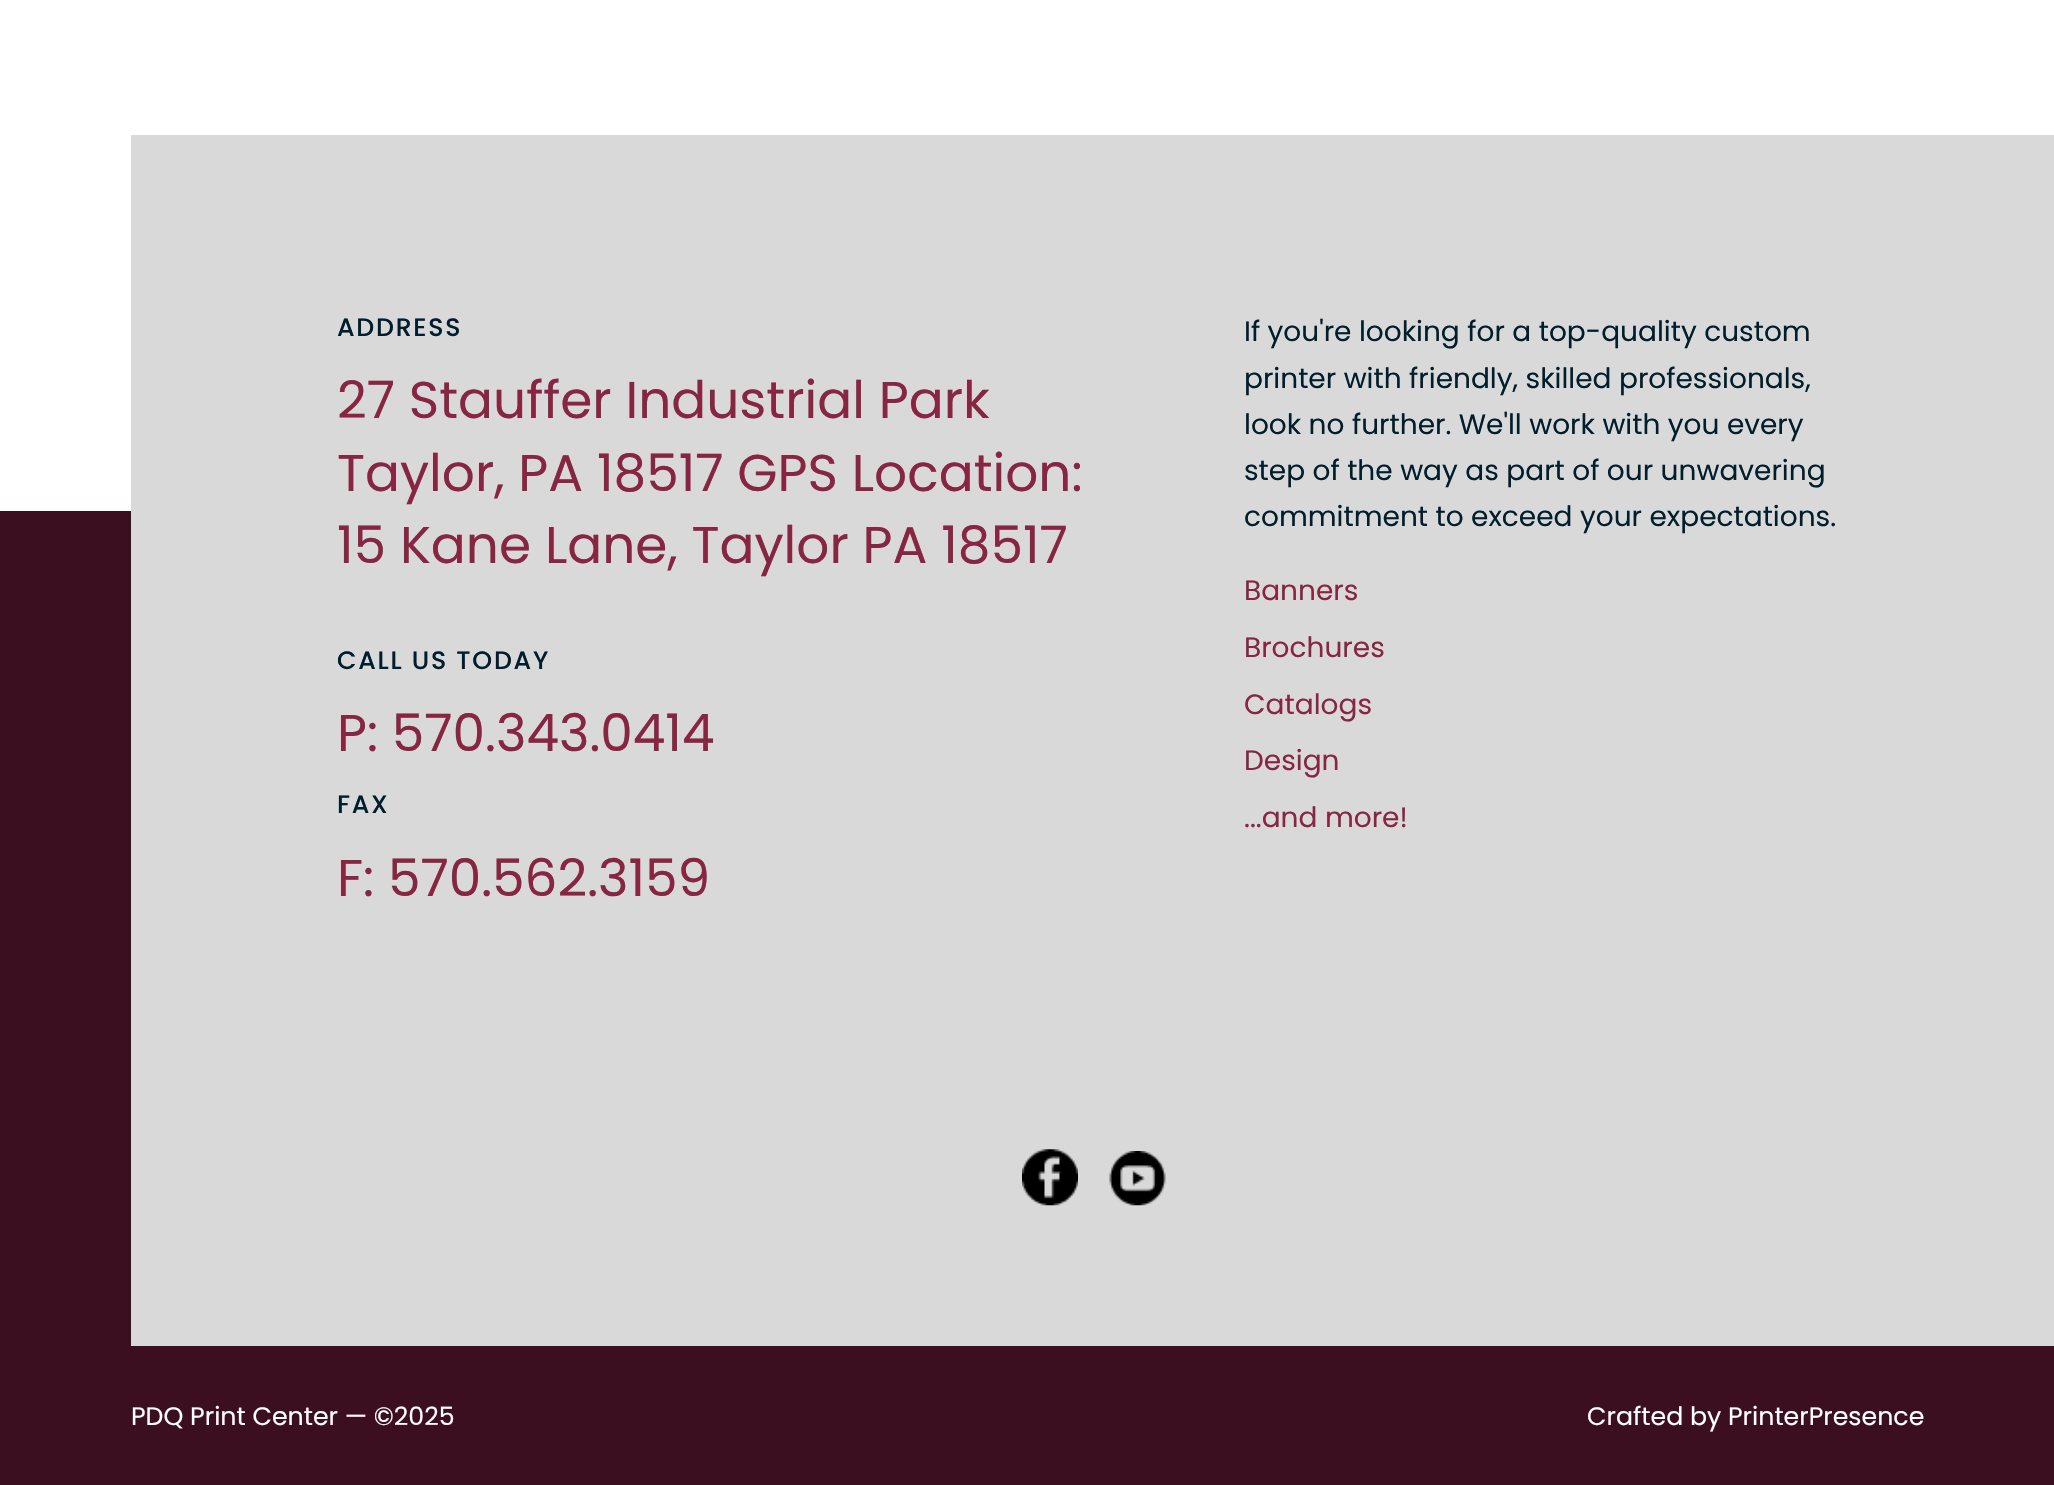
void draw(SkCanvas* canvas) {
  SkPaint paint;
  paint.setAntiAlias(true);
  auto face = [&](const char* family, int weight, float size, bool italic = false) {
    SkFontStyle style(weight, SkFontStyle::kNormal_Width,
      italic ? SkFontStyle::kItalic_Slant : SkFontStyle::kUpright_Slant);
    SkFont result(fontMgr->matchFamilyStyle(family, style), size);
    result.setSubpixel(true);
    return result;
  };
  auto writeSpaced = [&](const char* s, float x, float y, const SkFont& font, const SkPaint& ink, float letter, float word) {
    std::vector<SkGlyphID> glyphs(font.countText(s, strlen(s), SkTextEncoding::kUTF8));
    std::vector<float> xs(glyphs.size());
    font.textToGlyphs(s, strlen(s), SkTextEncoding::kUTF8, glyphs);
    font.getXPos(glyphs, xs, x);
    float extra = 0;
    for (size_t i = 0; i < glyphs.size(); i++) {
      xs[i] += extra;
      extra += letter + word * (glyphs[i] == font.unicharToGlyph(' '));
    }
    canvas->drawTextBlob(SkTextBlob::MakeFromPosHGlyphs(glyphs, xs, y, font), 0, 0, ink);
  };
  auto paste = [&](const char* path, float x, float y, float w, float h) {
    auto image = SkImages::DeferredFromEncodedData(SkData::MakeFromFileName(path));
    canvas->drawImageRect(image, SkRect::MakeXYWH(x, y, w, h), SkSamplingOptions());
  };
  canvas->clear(0xffffffff);
  paint.setColor(0xff3b0f20);
  canvas->drawRect(SkRect::MakeXYWH(0, 511, 2054, 974), paint);
  paint.setColor(0xffd9d9d9);
  canvas->drawRect(SkRect::MakeXYWH(131, 135, 1923, 1211), paint);
  paste("img/1.png", 1022, 1149, 56, 57);
  paste("img/2.png", 1109, 1151, 57, 55);
  auto f0 = face("Poppins", 500, 25.25f);
  paint.setColor(0xff011e2d);
  writeSpaced("ADDRESS", 337, 336, f0, paint, 1.75f, 0);
  auto f1 = face("Poppins", 400, 51.75f);
  paint.setColor(0xff872643);
  {
    const struct { const char* s; float x, y; } items[] = {
      {"27 Stauffer Industrial Park", 337, 418},
      {"Taylor, PA 18517 GPS Location:", 337, 491},
      {"15 Kane Lane, Taylor PA 18517", 337, 563},
    };
    for (auto [s, x, y] : items) {
      canvas->drawString(s, x, y, f1, paint);
    }
  }
  paint.setColor(0xff011e2d);
  writeSpaced("CALL US TODAY", 337, 669, f0, paint, 1.75f, 0);
  paint.setColor(0xff872643);
  canvas->drawString("P: 570.343.0414", 337, 751, f1, paint);
  paint.setColor(0xff011e2d);
  writeSpaced("FAX", 337, 813, f0, paint, 1.75f, 0);
  paint.setColor(0xff872643);
  canvas->drawString("F: 570.562.3159", 337, 896, f1, paint);
  auto f2 = face("Poppins", 400, 28);
  paint.setColor(0xff011e2d);
  {
    const struct { const char* s; float x, y; } items[] = {
      {"If you're looking for a top-quality custom", 1244, 341},
      {"printer with friendly, skilled professionals,", 1244, 388},
      {"look no further. We'll work with you every", 1244, 434},
      {"step of the way as part of our unwavering", 1244, 480},
      {"commitment to exceed your expectations.", 1244, 526},
    };
    for (auto [s, x, y] : items) {
      canvas->drawString(s, x, y, f2, paint);
    }
  }
  paint.setColor(0xff872643);
  {
    const struct { const char* s; float x, y; } items[] = {
      {"Banners", 1244, 600},
      {"Brochures", 1244, 657},
      {"Catalogs", 1244, 714},
      {"Design", 1244, 770},
      {"...and more!", 1244, 827},
    };
    for (auto [s, x, y] : items) {
      canvas->drawString(s, x, y, f2, paint);
    }
  }
  auto f3 = face("Poppins", 400, 25.25f);
  paint.setColor(0xffffffff);
  canvas->drawString("PDQ Print Center — ©2025", 131, 1425, f3, paint);
  canvas->drawString("Crafted by PrinterPresence", 1587, 1425, f3, paint);
}
